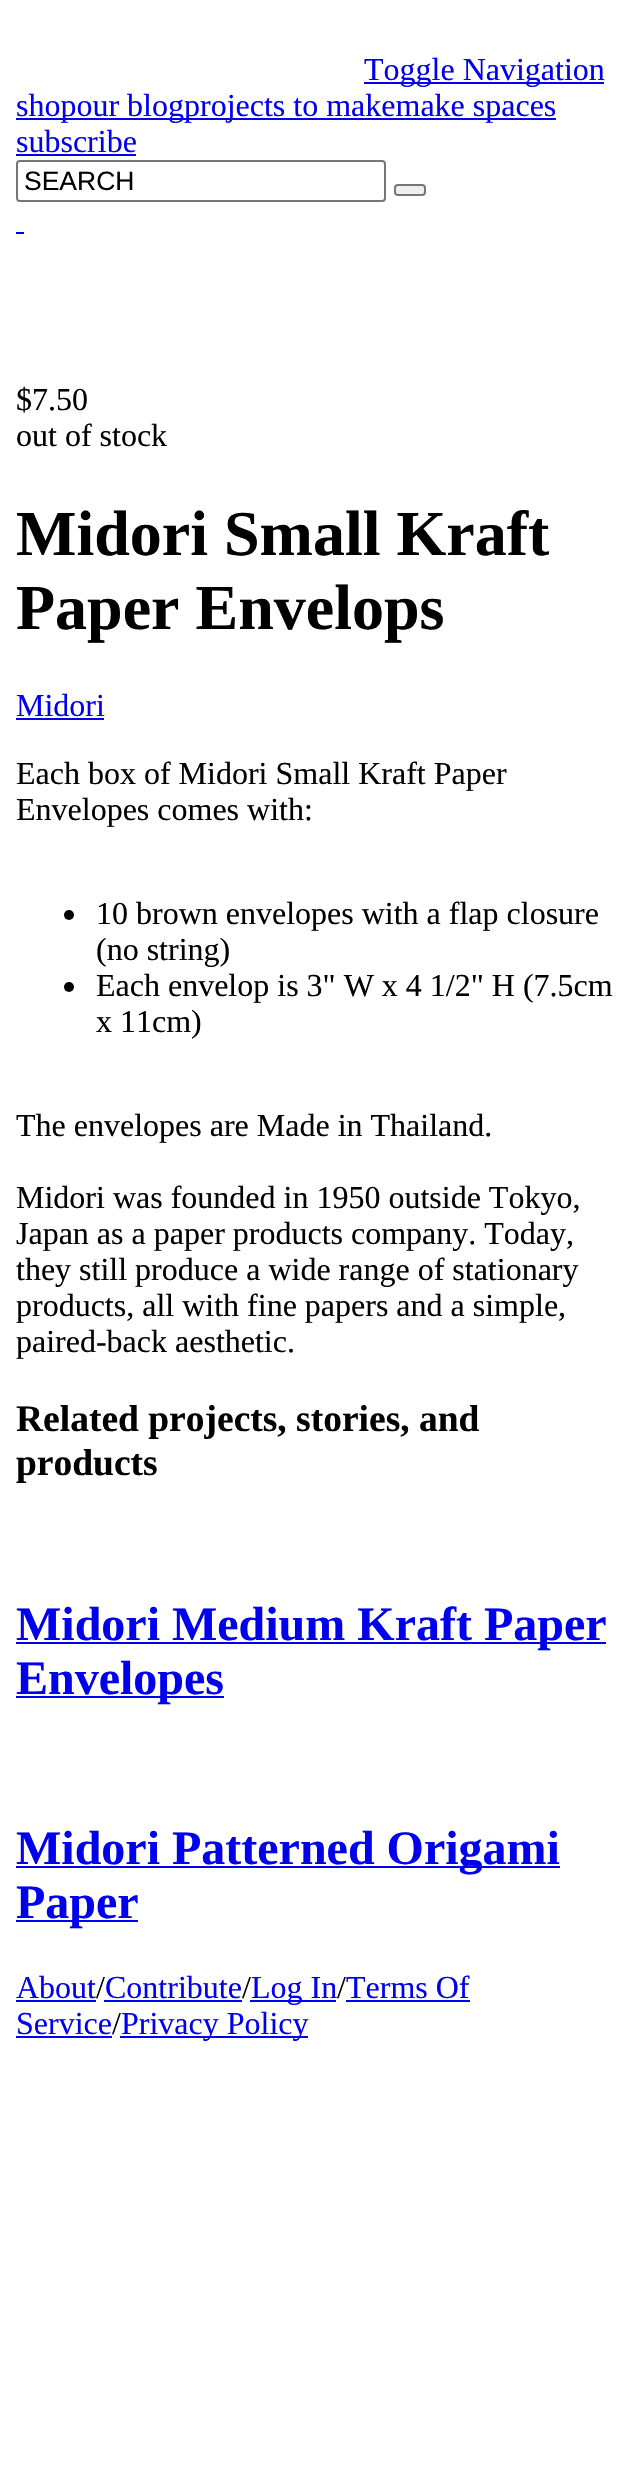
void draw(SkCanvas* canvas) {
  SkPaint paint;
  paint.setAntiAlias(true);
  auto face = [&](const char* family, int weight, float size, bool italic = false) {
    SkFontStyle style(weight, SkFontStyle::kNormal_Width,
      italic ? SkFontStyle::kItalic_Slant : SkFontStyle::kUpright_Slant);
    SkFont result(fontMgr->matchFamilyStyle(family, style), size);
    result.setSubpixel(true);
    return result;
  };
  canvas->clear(0xffffffff);
  {
    const struct { float x, y, w, h; SkColor color; } items[] = {
      {364, 82, 240, 2, 0xff0000ee},
      {16, 118, 540, 2, 0xff0000ee},
      {16, 154, 120, 2, 0xff0000ee},
    };
    for (auto [x, y, w, h, color] : items) {
      paint.setColor(color);
      canvas->drawRect(SkRect::MakeXYWH(x, y, w, h), paint);
    }
  }
  paint.setStroke(true);
  paint.setStrokeWidth(2);
  paint.setColor(0xff767676);
  canvas->drawRoundRect(SkRect::MakeXYWH(17, 161, 368, 40), 3, 3, paint);
  paint.setStroke(false);
  paint.setColor(0xffefefef);
  canvas->drawRoundRect(SkRect::MakeXYWH(395, 185, 30, 10), 3, 3, paint);
  paint.setStroke(true);
  paint.setColor(0xff767676);
  canvas->drawRoundRect(SkRect::MakeXYWH(395, 185, 30, 10), 3, 3, paint);
  paint.setStroke(false);
  paint.setColor(0xff0000ee);
  canvas->drawRect(SkRect::MakeXYWH(16, 232, 8, 2), paint);
  canvas->drawRect(SkRect::MakeXYWH(16, 718, 88, 2), paint);
  paint.setColor(0xff000000);
  canvas->drawCircle(69, 915, 5, paint);
  canvas->drawCircle(69, 987, 5, paint);
  {
    const struct { float x, y, w, h; SkColor color; } items[] = {
      {16, 1642, 590, 2, 0xff0000ee},
      {16, 1696, 208, 2, 0xff0000ee},
      {16, 1866, 544, 2, 0xff0000ee},
      {16, 1920, 122, 2, 0xff0000ee},
      {16, 2000, 80, 2, 0xff0000ee},
      {104, 2000, 138, 2, 0xff0000ee},
      {250, 2000, 86, 2, 0xff0000ee},
      {346, 2000, 124, 2, 0xff0000ee},
      {16, 2036, 96, 2, 0xff0000ee},
      {120, 2036, 188, 2, 0xff0000ee},
    };
    for (auto [x, y, w, h, color] : items) {
      paint.setColor(color);
      canvas->drawRect(SkRect::MakeXYWH(x, y, w, h), paint);
    }
  }
  auto f0 = face("Liberation Serif", 400, 32);
  {
    const struct { const char* s; float x, y; } items[] = {
      {"Toggle Navigation", 364, 80},
      {"shopour blogprojects to makemake spaces", 16, 116},
      {"subscribe", 16, 152},
    };
    for (auto [s, x, y] : items) {
      canvas->drawString(s, x, y, f0, paint);
    }
  }
  auto f1 = face("Liberation Sans", 400, 26.5f);
  paint.setColor(0xff000000);
  canvas->drawString("SEARCH", 24, 190, f1, paint);
  canvas->drawString("$7.50", 16, 410, f0, paint);
  canvas->drawString("out of stock", 16, 446, f0, paint);
  auto f2 = face("Liberation Serif", 700, 64);
  canvas->drawString("Midori Small Kraft", 16, 555, f2, paint);
  canvas->drawString("Paper Envelops", 16, 629, f2, paint);
  paint.setColor(0xff0000ee);
  canvas->drawString("Midori", 16, 716, f0, paint);
  paint.setColor(0xff000000);
  {
    const struct { const char* s; float x, y; } items[] = {
      {"Each box of Midori Small Kraft Paper", 16, 784},
      {"Envelopes comes with:", 16, 820},
      {"10 brown envelopes with a flap closure", 96, 924},
      {"(no string)", 96, 960},
      {"Each envelop is 3\" W x 4 1/2\" H (7.5cm", 96, 996},
      {"x 11cm)", 96, 1032},
      {"The envelopes are Made in Thailand.", 16, 1136},
      {"Midori was founded in 1950 outside Tokyo,", 16, 1208},
      {"Japan as a paper products company. Today,", 16, 1244},
      {"they still produce a wide range of stationary", 16, 1280},
      {"products, all with fine papers and a simple,", 16, 1316},
      {"paired-back aesthetic.", 16, 1352},
    };
    for (auto [s, x, y] : items) {
      canvas->drawString(s, x, y, f0, paint);
    }
  }
  auto f3 = face("Liberation Serif", 700, 37.5f);
  canvas->drawString("Related projects, stories, and", 16, 1431, f3, paint);
  canvas->drawString("products", 16, 1475, f3, paint);
  auto f4 = face("Liberation Serif", 700, 48);
  paint.setColor(0xff0000ee);
  {
    const struct { const char* s; float x, y; } items[] = {
      {"Midori Medium Kraft Paper", 16, 1640},
      {"Envelopes", 16, 1694},
      {"Midori Patterned Origami", 16, 1864},
      {"Paper", 16, 1918},
    };
    for (auto [s, x, y] : items) {
      canvas->drawString(s, x, y, f4, paint);
    }
  }
  canvas->drawString("About", 16, 1998, f0, paint);
  paint.setColor(0xff000000);
  canvas->drawString("/", 96, 1998, f0, paint);
  paint.setColor(0xff0000ee);
  canvas->drawString("Contribute", 105, 1998, f0, paint);
  paint.setColor(0xff000000);
  canvas->drawString("/", 242, 1998, f0, paint);
  paint.setColor(0xff0000ee);
  canvas->drawString("Log In", 251, 1998, f0, paint);
  paint.setColor(0xff000000);
  canvas->drawString("/", 337, 1998, f0, paint);
  paint.setColor(0xff0000ee);
  canvas->drawString("Terms Of", 346, 1998, f0, paint);
  canvas->drawString("Service", 16, 2034, f0, paint);
  paint.setColor(0xff000000);
  canvas->drawString("/", 112, 2034, f0, paint);
  paint.setColor(0xff0000ee);
  canvas->drawString("Privacy Policy", 121, 2034, f0, paint);
}
